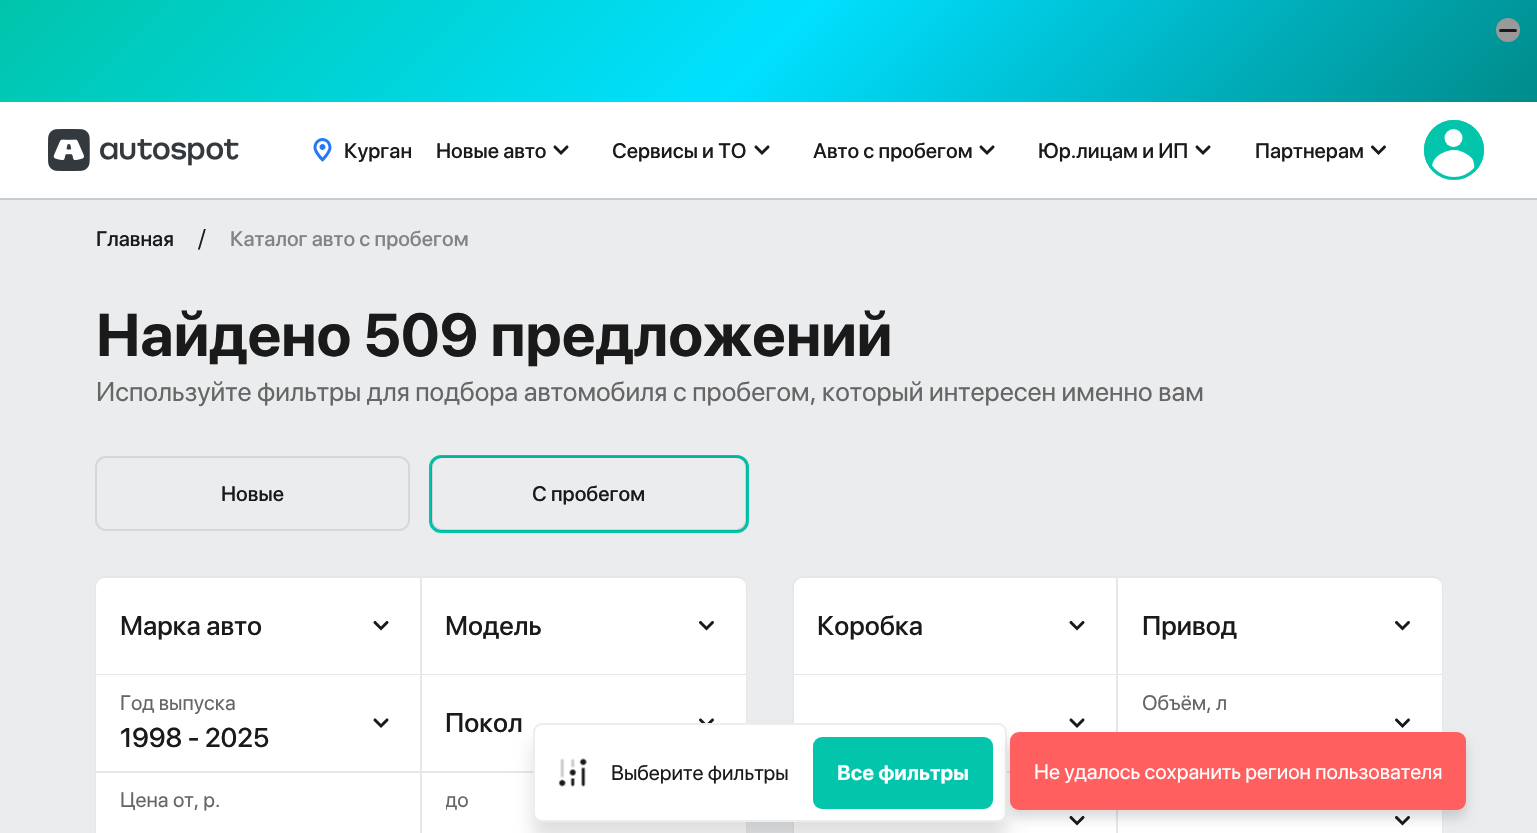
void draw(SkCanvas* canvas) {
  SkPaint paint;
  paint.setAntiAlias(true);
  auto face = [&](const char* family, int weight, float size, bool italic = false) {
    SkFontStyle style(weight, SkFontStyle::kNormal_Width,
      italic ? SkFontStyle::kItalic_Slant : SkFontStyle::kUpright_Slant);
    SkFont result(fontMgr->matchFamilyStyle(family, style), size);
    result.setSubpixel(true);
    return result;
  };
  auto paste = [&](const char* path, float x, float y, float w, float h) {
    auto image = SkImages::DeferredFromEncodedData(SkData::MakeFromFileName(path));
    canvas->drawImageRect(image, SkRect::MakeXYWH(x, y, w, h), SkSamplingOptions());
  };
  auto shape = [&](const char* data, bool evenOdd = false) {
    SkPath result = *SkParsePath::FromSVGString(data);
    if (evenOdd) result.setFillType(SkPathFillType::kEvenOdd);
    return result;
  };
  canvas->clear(0xffffffff);
  {
    const SkColor colors[] = {0xff00c5ab, 0xff00e0ff, 0xff008b8b};
    const float stops[] = {0, 0.5f, 1};
    const SkPoint ends[] = {{359, -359}, {1179, 461}};
    paint.setShader(SkGradientShader::MakeLinear(ends, colors, stops, 3, SkTileMode::kClamp));
    paint.setAlpha(255);
  }
  canvas->drawRect(SkRect::MakeXYWH(0, 0, 1537, 102), paint);
  paint.setShader(nullptr);
  paint.setColor(0xff999999);
  canvas->drawCircle(1508, 30, 12, paint);
  paint.setColor(0xff1a1a1a);
  canvas->drawRoundRect(SkRect::MakeXYWH(1499, 29, 18, 3), 1.5f, 1.5f, paint);
  paint.setColor(0xffc9cacb);
  canvas->drawPath(shape("M0 198V200H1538V104V198Z"), paint);
  paste("img/1.png", 48, 129, 191, 42);
  paste("img/2.png", 313, 138, 19, 24);
  paste("img/3.png", 553, 145, 16, 10);
  paste("img/4.png", 754, 145, 16, 10);
  paste("img/3.png", 979, 145, 16, 10);
  paste("img/3.png", 1195, 145, 16, 10);
  paste("img/5.png", 1371, 145, 15, 10);
  paint.setColor(0xff02c5ab);
  canvas->drawCircle(1454, 150, 30, paint);
  paint.setColor(0xffffffff);
  canvas->drawCircle(1453.5f, 138, 9, paint);
  canvas->drawPath(shape("M1454 150C1443 150 1427 160 1434 172L1439 176C1444 179 1449 180 1454 180C1460 180 1468 178 1472 174C1476 171 1474 163 1473 160C1472 158 1470 156 1468 155C1464 152 1459 150 1454 150Z"), paint);
  paint.setStroke(true);
  paint.setStrokeWidth(3);
  paint.setColor(0xff02c5ab);
  canvas->drawCircle(1454, 150, 28.5f, paint);
  paint.setStroke(false);
  paint.setColor(0xffebeced);
  canvas->drawRect(SkRect::MakeXYWH(0, 200, 1537, 633), paint);
  paint.setStroke(true);
  paint.setStrokeWidth(2);
  paint.setColor(0xffd6d7d8);
  canvas->drawRoundRect(SkRect::MakeXYWH(96, 457, 313, 73), 10, 10, paint);
  paint.setStrokeWidth(3);
  paint.setColor(0xff02c5ab);
  canvas->drawRoundRect(SkRect::MakeXYWH(430.5f, 456.5f, 317, 75), 10.5f, 10.5f, paint);
  paint.setStrokeWidth(2);
  paint.setColor(0x17000000);
  canvas->drawRoundRect(SkRect::MakeXYWH(432, 457, 314, 73), 10, 10, paint);
  paint.setColor(0xffe6e7e8);
  canvas->drawRoundRect(SkRect::MakeXYWH(96, 577, 650, 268), 10, 10, paint);
  paint.setStroke(false);
  canvas->drawRoundRect(SkRect::MakeXYWH(96, 578, 650, 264), 9, 9, paint);
  paint.setColor(0xffffffff);
  canvas->drawPath(shape("M105 578H420V674H96V587C96 582 100 578 105 578Z"), paint);
  paste("img/6.png", 373, 621, 16, 10);
  canvas->drawPath(shape("M422 578H737C742 578 746 582 746 587V674H422Z"), paint);
  paste("img/7.png", 699, 621, 15, 10);
  canvas->drawRect(SkRect::MakeXYWH(96, 675, 324, 96), paint);
  paste("img/3.png", 373, 718, 16, 10);
  canvas->drawRect(SkRect::MakeXYWH(422, 675, 324, 96), paint);
  paste("img/8.png", 699, 718, 15, 5);
  canvas->drawRect(SkRect::MakeXYWH(96, 773, 324, 60), paint);
  canvas->drawRect(SkRect::MakeXYWH(422, 773, 324, 60), paint);
  paint.setStroke(true);
  paint.setColor(0xffe6e7e8);
  canvas->drawRoundRect(SkRect::MakeXYWH(793, 577, 649, 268), 10, 10, paint);
  paint.setStroke(false);
  canvas->drawRoundRect(SkRect::MakeXYWH(794, 578, 648, 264), 9, 9, paint);
  paint.setColor(0xffffffff);
  canvas->drawPath(shape("M803 578H1116V674H794V587C794 582 798 578 803 578Z"), paint);
  paste("img/6.png", 1069, 621, 16, 10);
  canvas->drawPath(shape("M1118 578H1433C1438 578 1442 582 1442 587V674H1118Z"), paint);
  paste("img/7.png", 1395, 621, 15, 10);
  canvas->drawRect(SkRect::MakeXYWH(794, 675, 322, 96), paint);
  paste("img/3.png", 1069, 718, 16, 10);
  canvas->drawRect(SkRect::MakeXYWH(1118, 675, 324, 57), paint);
  paste("img/5.png", 1395, 718, 15, 10);
  canvas->drawRect(SkRect::MakeXYWH(794, 773, 322, 60), paint);
  paste("img/6.png", 1069, 816, 16, 10);
  canvas->drawRect(SkRect::MakeXYWH(1118, 810, 324, 23), paint);
  paste("img/7.png", 1395, 816, 15, 10);
  paint.setColor(0x1f000000);
  paint.setMaskFilter(SkMaskFilter::MakeBlur(kNormal_SkBlurStyle, 9));
  canvas->drawRoundRect(SkRect::MakeXYWH(533, 741, 474, 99), 9, 9, paint);
  paint.setMaskFilter(nullptr);
  paint.setColor(0xffffffff);
  canvas->drawRoundRect(SkRect::MakeXYWH(533, 723, 474, 99), 9, 9, paint);
  paint.setStroke(true);
  paint.setColor(0x12000000);
  canvas->drawRoundRect(SkRect::MakeXYWH(534, 724, 472, 97), 8, 8, paint);
  paste("img/9.png", 558, 758, 29, 29);
  paint.setStroke(false);
  paint.setColor(0xff02c5ab);
  canvas->drawRoundRect(SkRect::MakeXYWH(813, 737, 180, 72), 9, 9, paint);
  paint.setColor(0x24000000);
  paint.setMaskFilter(SkMaskFilter::MakeBlur(kNormal_SkBlurStyle, 6));
  canvas->drawRoundRect(SkRect::MakeXYWH(1010, 740, 456, 78), 9, 9, paint);
  paint.setMaskFilter(nullptr);
  paint.setColor(0xffff5f5f);
  canvas->drawRoundRect(SkRect::MakeXYWH(1010, 732, 456, 78), 9, 9, paint);
  auto f0 = face("SF Pro Display", 500, 21);
  paint.setColor(0xff1a1a1a);
  {
    const struct { const char* s; float x, y; } items[] = {
      {"Курган", 344, 158},
      {"Новые авто", 436, 158},
      {"Сервисы и ТО", 612, 158},
      {"Авто с пробегом", 813, 158},
      {"Юр.лицам и ИП", 1038, 158},
      {"Партнерам", 1255, 158},
      {"Главная", 96, 246},
    };
    for (auto [s, x, y] : items) {
      canvas->drawString(s, x, y, f0, paint);
    }
  }
  auto f1 = face("SF Pro Display", 400, 24);
  canvas->drawString("/", 198, 246, f1, paint);
  paint.setColor(0xff838384);
  canvas->drawString("Каталог авто с пробегом", 230, 246, f0, paint);
  auto f2 = face("SF Pro Display", 700, 60);
  paint.setColor(0xff1a1a1a);
  canvas->drawString("Найдено 509 предложений", 96, 356, f2, paint);
  auto f3 = face("SF Pro Display", 400, 27);
  paint.setColor(0xff666666);
  canvas->drawString("Используйте фильтры для подбора автомобиля с пробегом, который интересен именно вам", 96, 401, f3, paint);
  paint.setColor(0xff1a1a1a);
  canvas->drawString("Новые", 221, 501, f0, paint);
  canvas->drawString("С пробегом", 532, 501, f0, paint);
  auto f4 = face("SF Pro Display", 500, 27);
  canvas->drawString("Марка авто", 120, 635, f4, paint);
  canvas->drawString("Модель", 445, 635, f4, paint);
  auto f5 = face("SF Pro Display", 400, 21);
  paint.setColor(0xff666666);
  canvas->drawString("Год выпуска", 120, 710, f5, paint);
  paint.setColor(0xff1a1a1a);
  canvas->drawString("1998 - 2025", 120, 747, f4, paint);
  canvas->drawString("Покол", 445, 732, f4, paint);
  paint.setColor(0xff666666);
  canvas->drawString("Цена от, р.", 120, 807, f5, paint);
  canvas->save();
  canvas->clipRect(SkRect::MakeXYWH(446, 785, 276, 30));
  canvas->drawString("до", 445, 807, f5, paint);
  canvas->restore();
  paint.setColor(0xff1a1a1a);
  canvas->drawString("Коробка", 817, 635, f4, paint);
  canvas->drawString("Привод", 1142, 635, f4, paint);
  paint.setColor(0xff666666);
  canvas->drawString("Объём, л", 1142, 710, f5, paint);
  paint.setColor(0xff1a1a1a);
  canvas->drawString("Выберите фильтры", 611, 780, f5, paint);
  auto f6 = face("SF Pro Display", 700, 21);
  paint.setColor(0xffffffff);
  canvas->drawString("Все фильтры", 837, 780, f6, paint);
  canvas->drawString("Не удалось сохранить регион пользователя", 1034, 779, f5, paint);
}
